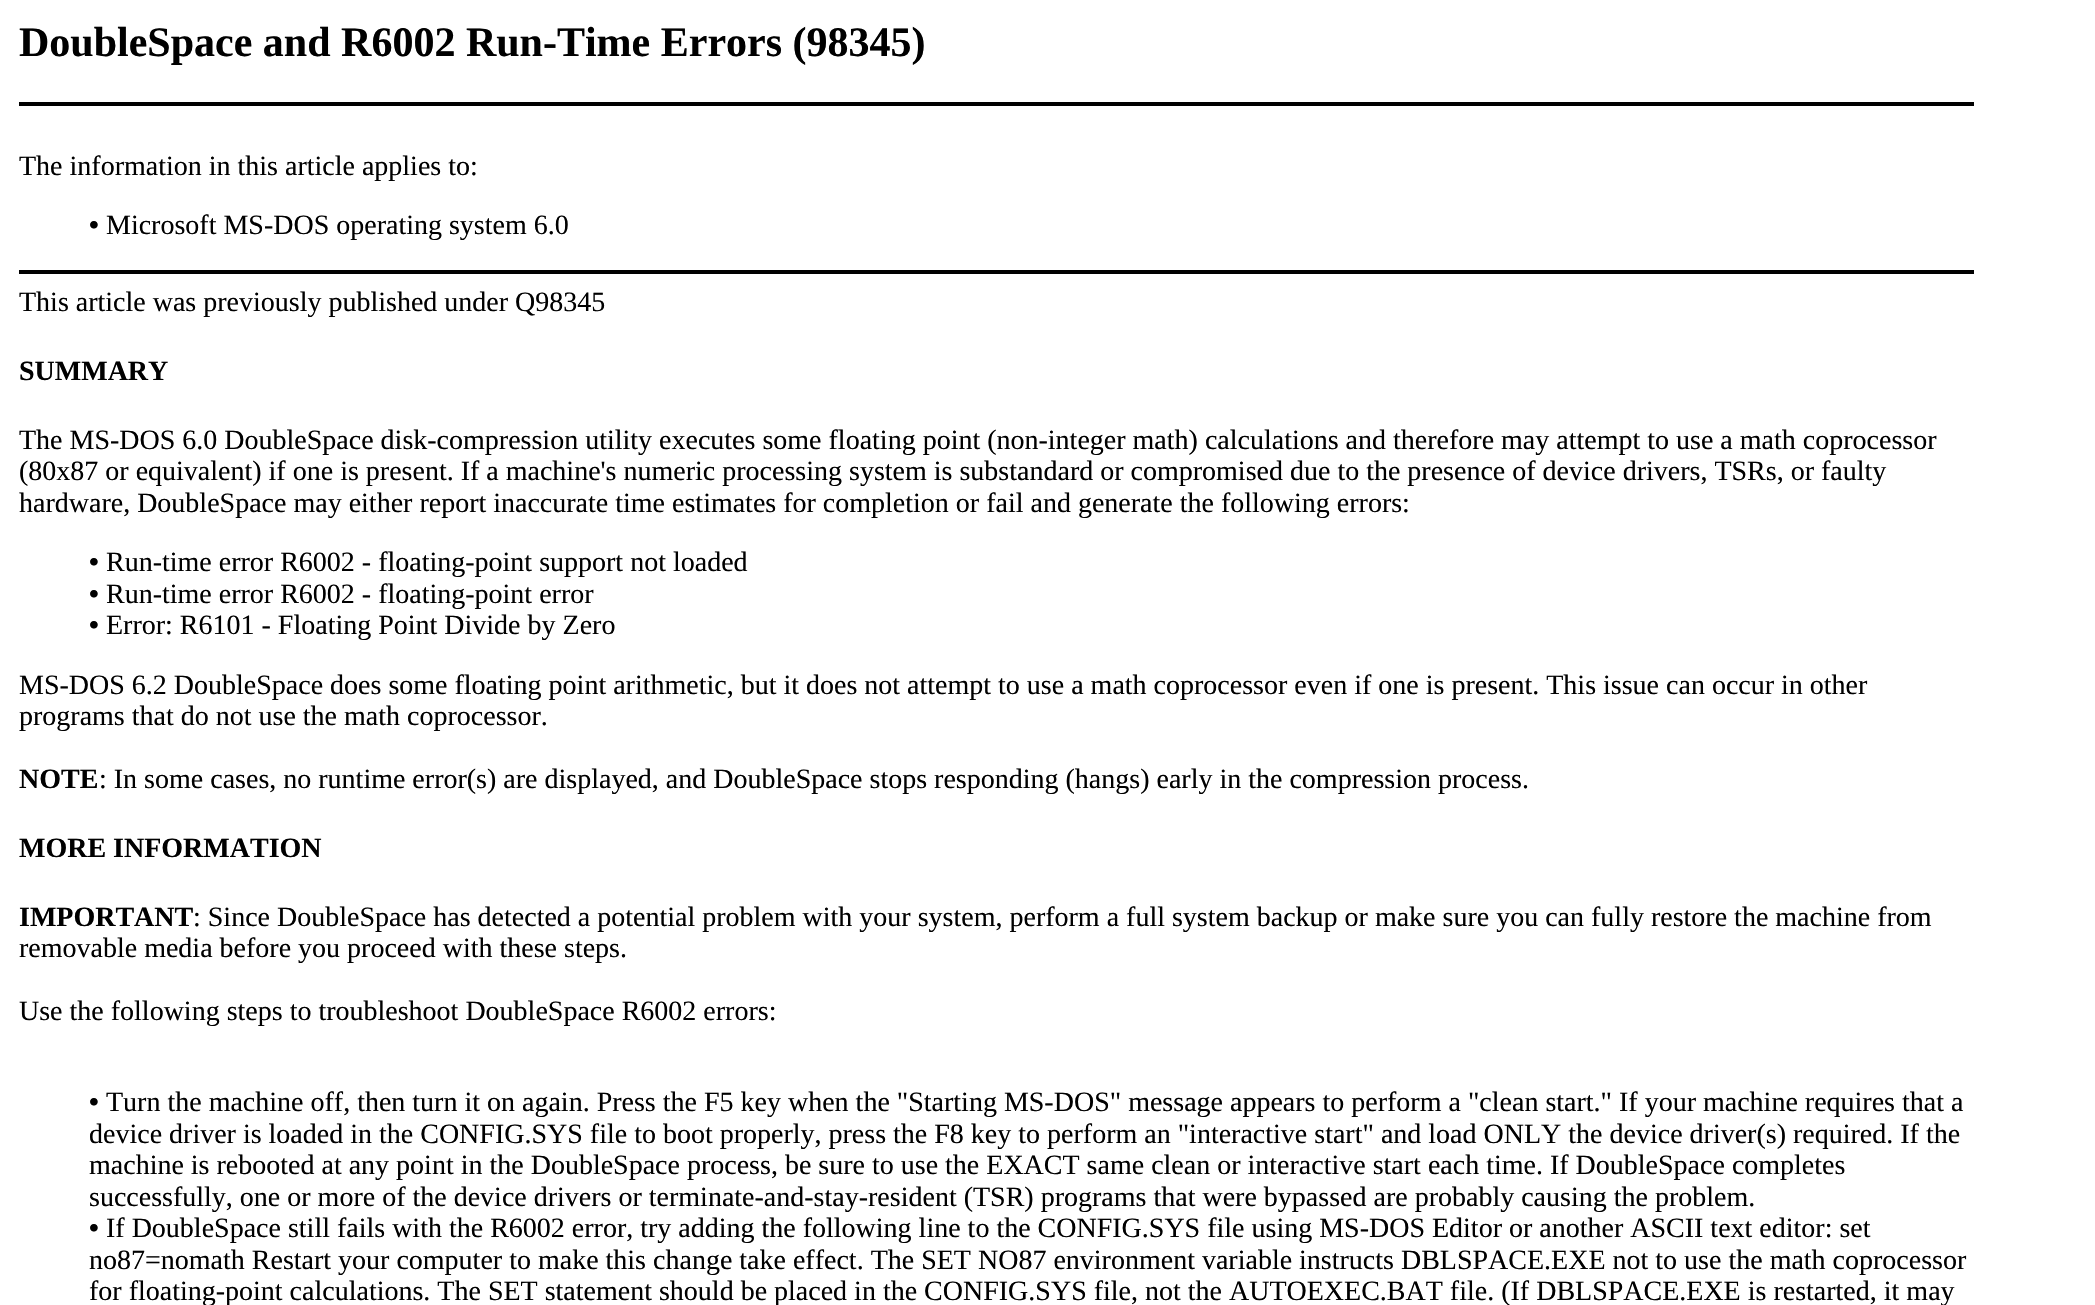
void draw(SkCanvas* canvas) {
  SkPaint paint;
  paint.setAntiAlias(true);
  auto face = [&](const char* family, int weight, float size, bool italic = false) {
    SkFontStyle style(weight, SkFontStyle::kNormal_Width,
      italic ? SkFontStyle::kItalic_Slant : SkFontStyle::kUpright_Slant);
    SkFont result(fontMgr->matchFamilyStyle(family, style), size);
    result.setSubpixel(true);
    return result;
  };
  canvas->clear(0xffffffff);
  paint.setColor(0xff000000);
  canvas->drawRect(SkRect::MakeXYWH(19, 102, 1955, 4), paint);
  canvas->drawRect(SkRect::MakeXYWH(19, 270, 1955, 4), paint);
  auto f0 = face("Liberation Serif", 700, 42);
  canvas->drawString("DoubleSpace and R6002 Run-Time Errors (98345)", 19, 56, f0, paint);
  auto f1 = face("Liberation Serif", 400, 28);
  canvas->drawString("The information in this article applies to:", 19, 175, f1, paint);
  auto f2 = face("Liberation Serif", 700, 28);
  canvas->drawString("•", 89, 234, f2, paint);
  canvas->drawString("Microsoft MS-DOS operating system 6.0", 106, 234, f1, paint);
  canvas->drawString("This article was previously published under Q98345", 19, 311, f1, paint);
  canvas->drawString("SUMMARY", 19, 380, f2, paint);
  {
    const struct { const char* s; float x, y; } items[] = {
      {"The MS-DOS 6.0 DoubleSpace disk-compression utility executes some floating point (non-integer math) calculations and therefore may attempt to use a math coprocessor", 19, 449},
      {"(80x87 or equivalent) if one is present. If a machine's numeric processing system is substandard or compromised due to the presence of device drivers, TSRs, or faulty", 19, 480},
      {"hardware, DoubleSpace may either report inaccurate time estimates for completion or fail and generate the following errors:", 19, 512},
    };
    for (auto [s, x, y] : items) {
      canvas->drawString(s, x, y, f1, paint);
    }
  }
  canvas->drawString("•", 89, 571, f2, paint);
  canvas->drawString("Run-time error R6002 - floating-point support not loaded", 106, 571, f1, paint);
  canvas->drawString("•", 89, 603, f2, paint);
  canvas->drawString("Run-time error R6002 - floating-point error", 106, 603, f1, paint);
  canvas->drawString("•", 89, 634, f2, paint);
  {
    const struct { const char* s; float x, y; } items[] = {
      {"Error: R6101 - Floating Point Divide by Zero", 106, 634},
      {"MS-DOS 6.2 DoubleSpace does some floating point arithmetic, but it does not attempt to use a math coprocessor even if one is present. This issue can occur in other", 19, 694},
      {"programs that do not use the math coprocessor.", 19, 725},
    };
    for (auto [s, x, y] : items) {
      canvas->drawString(s, x, y, f1, paint);
    }
  }
  canvas->drawString("NOTE", 19, 788, f2, paint);
  canvas->drawString(": In some cases, no runtime error(s) are displayed, and DoubleSpace stops responding (hangs) early in the compression process.", 99, 788, f1, paint);
  canvas->drawString("MORE INFORMATION", 19, 857, f2, paint);
  canvas->drawString("IMPORTANT", 19, 926, f2, paint);
  {
    const struct { const char* s; float x, y; } items[] = {
      {": Since DoubleSpace has detected a potential problem with your system, perform a full system backup or make sure you can fully restore the machine from", 193, 926},
      {"removable media before you proceed with these steps.", 19, 957},
      {"Use the following steps to troubleshoot DoubleSpace R6002 errors:", 19, 1020},
    };
    for (auto [s, x, y] : items) {
      canvas->drawString(s, x, y, f1, paint);
    }
  }
  canvas->drawString("•", 89, 1111, f2, paint);
  {
    const struct { const char* s; float x, y; } items[] = {
      {"Turn the machine off, then turn it on again. Press the F5 key when the \"Starting MS-DOS\" message appears to perform a \"clean start.\" If your machine requires that a", 106, 1111},
      {"device driver is loaded in the CONFIG.SYS file to boot properly, press the F8 key to perform an \"interactive start\" and load ONLY the device driver(s) required. If the", 89, 1143},
      {"machine is rebooted at any point in the DoubleSpace process, be sure to use the EXACT same clean or interactive start each time. If DoubleSpace completes", 89, 1174},
      {"successfully, one or more of the device drivers or terminate-and-stay-resident (TSR) programs that were bypassed are probably causing the problem.", 89, 1206},
    };
    for (auto [s, x, y] : items) {
      canvas->drawString(s, x, y, f1, paint);
    }
  }
  canvas->drawString("•", 89, 1237, f2, paint);
  {
    const struct { const char* s; float x, y; } items[] = {
      {"If DoubleSpace still fails with the R6002 error, try adding the following line to the CONFIG.SYS file using MS-DOS Editor or another ASCII text editor: set", 106, 1237},
      {"no87=nomath Restart your computer to make this change take effect. The SET NO87 environment variable instructs DBLSPACE.EXE not to use the math coprocessor", 89, 1269},
      {"for floating-point calculations. The SET statement should be placed in the CONFIG.SYS file, not the AUTOEXEC.BAT file. (If DBLSPACE.EXE is restarted, it may", 89, 1300},
    };
    for (auto [s, x, y] : items) {
      canvas->drawString(s, x, y, f1, paint);
    }
  }
}
